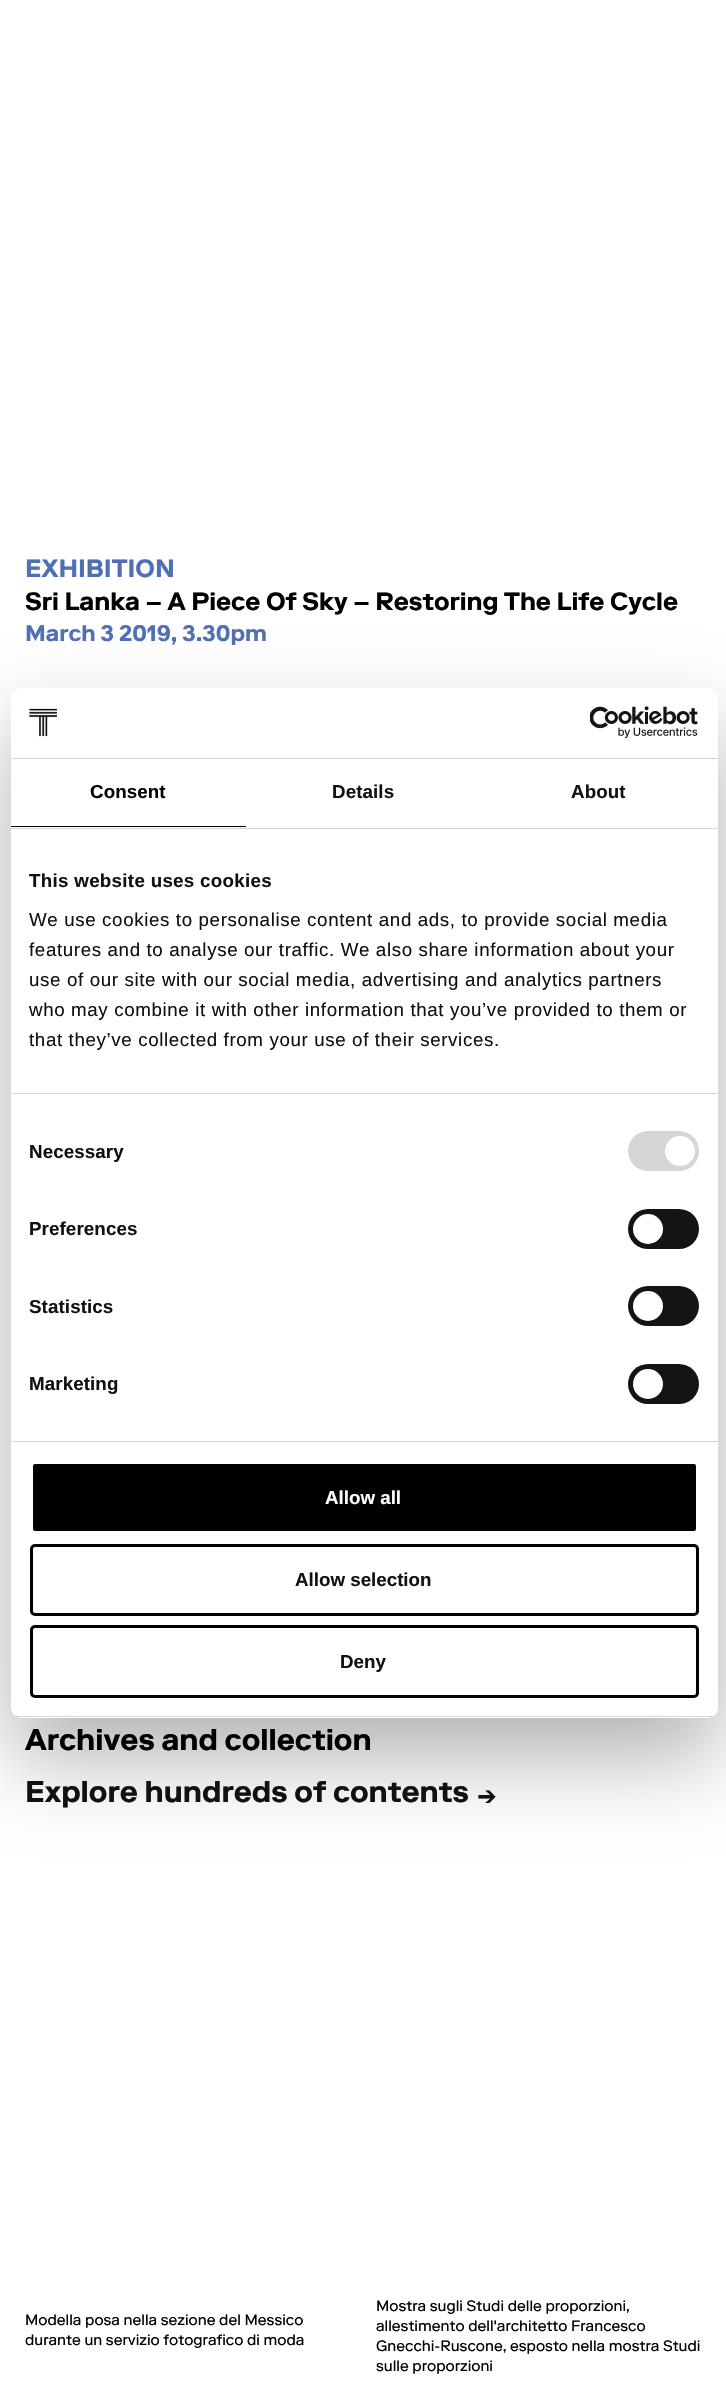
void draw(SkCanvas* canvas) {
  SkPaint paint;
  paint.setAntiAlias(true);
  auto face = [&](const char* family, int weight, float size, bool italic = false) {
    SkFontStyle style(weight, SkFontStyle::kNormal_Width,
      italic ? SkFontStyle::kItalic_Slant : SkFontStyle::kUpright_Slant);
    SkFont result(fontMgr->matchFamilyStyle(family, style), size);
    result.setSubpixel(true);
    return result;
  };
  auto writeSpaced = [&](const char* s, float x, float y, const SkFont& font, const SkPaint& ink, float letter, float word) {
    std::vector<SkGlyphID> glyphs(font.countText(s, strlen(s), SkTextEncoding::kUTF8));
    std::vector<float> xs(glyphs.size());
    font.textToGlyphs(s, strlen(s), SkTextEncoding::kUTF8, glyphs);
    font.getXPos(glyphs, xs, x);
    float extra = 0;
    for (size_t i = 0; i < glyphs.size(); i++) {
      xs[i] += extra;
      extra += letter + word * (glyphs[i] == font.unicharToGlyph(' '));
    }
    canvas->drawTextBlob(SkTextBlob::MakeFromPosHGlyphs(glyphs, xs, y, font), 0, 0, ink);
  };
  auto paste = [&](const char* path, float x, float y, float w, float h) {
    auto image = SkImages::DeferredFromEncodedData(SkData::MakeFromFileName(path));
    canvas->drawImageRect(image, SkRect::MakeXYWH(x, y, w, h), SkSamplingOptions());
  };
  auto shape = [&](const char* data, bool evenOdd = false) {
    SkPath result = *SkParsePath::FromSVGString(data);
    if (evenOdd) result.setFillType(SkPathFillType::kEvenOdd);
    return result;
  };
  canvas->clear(0xffffffff);
  paint.setColor(0x4d000000);
  paint.setMaskFilter(SkMaskFilter::MakeBlur(kNormal_SkBlurStyle, 42.5f));
  canvas->drawRoundRect(SkRect::MakeXYWH(11, 728, 707, 1030), 10, 10, paint);
  paint.setMaskFilter(nullptr);
  paint.setColor(0xffffffff);
  canvas->drawRoundRect(SkRect::MakeXYWH(11, 688, 707, 1030), 10, 10, paint);
  paint.setColor(0xffd6d6d6);
  canvas->drawRect(SkRect::MakeXYWH(11, 758, 707, 1), paint);
  paste("img/1.png", 29, 708, 28, 29);
  paste("img/2.png", 590, 706, 108, 32);
  {
    const struct { float x, y, w, h; SkColor color; } items[] = {
      {11, 828, 707, 1, 0xffd6d6d6},
      {11, 826, 235, 1, 0xff000000},
      {11, 1093, 707, 1, 0xffd6d6d6},
      {11, 1441, 707, 1, 0xffd6d6d6},
    };
    for (auto [x, y, w, h, color] : items) {
      paint.setColor(color);
      canvas->drawRect(SkRect::MakeXYWH(x, y, w, h), paint);
    }
  }
  canvas->drawRoundRect(SkRect::MakeXYWH(628, 1131, 71, 40), 20, 20, paint);
  paint.setColor(0xffffffff);
  canvas->drawCircle(680, 1151, 15, paint);
  paint.setColor(0xff141414);
  canvas->drawRoundRect(SkRect::MakeXYWH(628, 1209, 71, 40), 20, 20, paint);
  paint.setColor(0xffffffff);
  canvas->drawCircle(648, 1229, 15, paint);
  paint.setColor(0xff141414);
  canvas->drawRoundRect(SkRect::MakeXYWH(628, 1286, 71, 40), 20, 20, paint);
  paint.setColor(0xffffffff);
  canvas->drawCircle(648, 1306, 15, paint);
  paint.setColor(0xff141414);
  canvas->drawRoundRect(SkRect::MakeXYWH(628, 1364, 71, 40), 20, 20, paint);
  paint.setColor(0xffffffff);
  canvas->drawCircle(648, 1384, 15, paint);
  canvas->save();
  canvas->clipPath(shape("M21 688H708C713.5 688 718 692.5 718 698V1708C718 1713.5 713.5 1718 708 1718H21C15.5 1718 11 1713.5 11 1708V698C11 692.5 15.5 688 21 688Z"), true);
  paint.setColor(0xffd6d6d6);
  canvas->drawRect(SkRect::MakeXYWH(11, 1716, 707, 1), paint);
  canvas->restore();
  paint.setColor(0xff000000);
  canvas->drawRoundRect(SkRect::MakeXYWH(31.5f, 1462.5f, 666, 70), 3.5f, 3.5f, paint);
  paint.setStroke(true);
  paint.setStrokeWidth(3);
  paint.setColor(0xffffffff);
  canvas->drawRoundRect(SkRect::MakeXYWH(31.5f, 1462.5f, 666, 70), 3.5f, 3.5f, paint);
  paint.setColor(0xff000000);
  canvas->drawRoundRect(SkRect::MakeXYWH(31.5f, 1545.5f, 666, 69), 3.5f, 3.5f, paint);
  canvas->drawRoundRect(SkRect::MakeXYWH(31.5f, 1626.5f, 666, 70), 3.5f, 3.5f, paint);
  auto f0 = face("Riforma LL", 700, 25);
  paint.setStroke(false);
  paint.setColor(0xff516fb4);
  canvas->drawString("EXHIBITION", 25, 577, f0, paint);
  paint.setColor(0xff000000);
  canvas->drawString("Sri Lanka – A Piece Of Sky – Restoring The Life Cycle", 25, 610, f0, paint);
  auto f1 = face("Riforma LL", 700, 22.5f);
  paint.setColor(0xff516fb4);
  canvas->drawString("March 3 2019, 3.30pm", 25, 641, f1, paint);
  auto f2 = face("Riforma LL", 700, 30);
  paint.setColor(0xff000000);
  canvas->drawString("Archives and collection", 25, 1750, f2, paint);
  paint.setColor(0xff111111);
  canvas->drawString("Explore hundreds of contents", 25, 1802, f2, paint);
  auto f3 = face("Riforma LL", 700, 24);
  canvas->drawString("→", 477, 1803, f3, paint);
  auto f4 = face("Riforma LL", 400, 15);
  paint.setColor(0xff000000);
  {
    const struct { const char* s; float x, y; } items[] = {
      {"Modella posa nella sezione del Messico", 25, 2325},
      {"durante un servizio fotografico di moda", 25, 2345},
      {"Mostra sugli Studi delle proporzioni,", 376, 2311},
      {"allestimento dell'architetto Francesco", 376, 2331},
      {"Gnecchi-Ruscone, esposto nella mostra Studi", 376, 2351},
      {"sulle proporzioni", 376, 2371},
    };
    for (auto [s, x, y] : items) {
      canvas->drawString(s, x, y, f4, paint);
    }
  }
  auto f5 = face("Liberation Sans", 700, 18.75f);
  writeSpaced("Consent", 90, 798, f5, paint, 0.1f, 0);
  paint.setColor(0xff111111);
  writeSpaced("Details", 332, 798, f5, paint, 0.1f, 0);
  writeSpaced("About", 571, 798, f5, paint, 0.1f, 0);
  writeSpaced("This website uses cookies", 29, 887, f5, paint, 0.3f, 0);
  auto f6 = face("Liberation Sans", 400, 18.75f);
  {
    const struct { const char* s; float x, y; } items[] = {
      {"We use cookies to personalise content and ads, to provide social media", 29, 926},
      {"features and to analyse our traffic. We also share information about your", 29, 956},
      {"use of our site with our social media, advertising and analytics partners", 29, 986},
      {"who may combine it with other information that you’ve provided to them or", 29, 1016},
      {"that they’ve collected from your use of their services.", 29, 1046},
    };
    for (auto [s, x, y] : items) {
      writeSpaced(s, x, y, f6, paint, 0.62f, 0);
    }
  }
  {
    const struct { const char* s; float x, y; } items[] = {
      {"Necessary", 29, 1158},
      {"Preferences", 29, 1235},
      {"Statistics", 29, 1313},
      {"Marketing", 29, 1390},
    };
    for (auto [s, x, y] : items) {
      writeSpaced(s, x, y, f5, paint, 0.1f, 0);
    }
  }
  paint.setColor(0xffffffff);
  canvas->drawString("Allow all", 325, 1504, f5, paint);
  paint.setColor(0xff111111);
  canvas->drawString("Allow selection", 295, 1586, f5, paint);
  canvas->drawString("Deny", 340, 1668, f5, paint);
}
